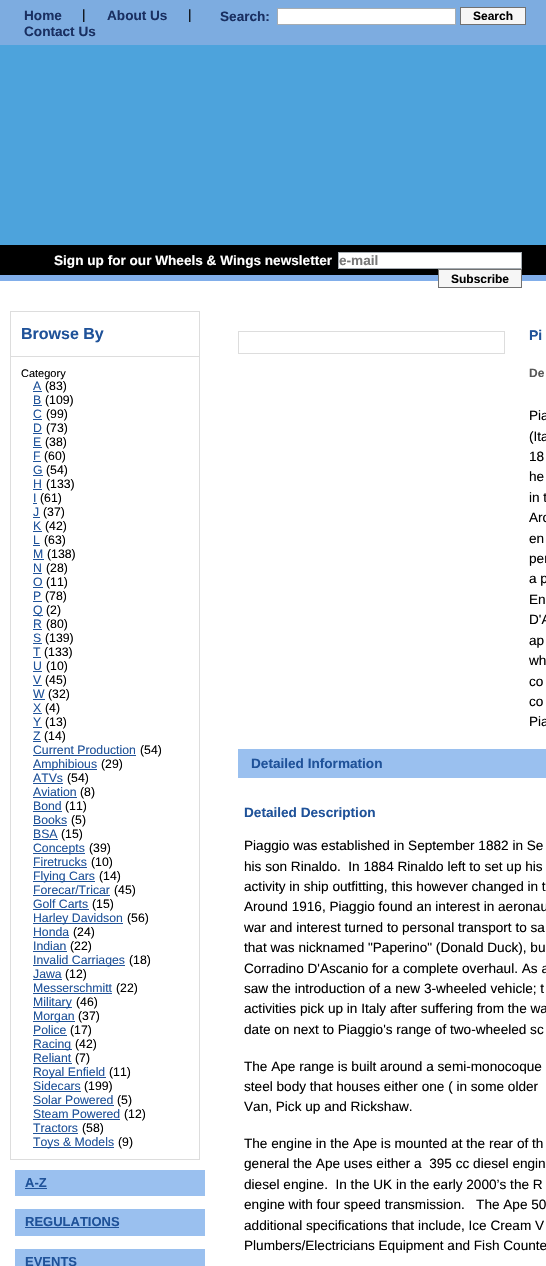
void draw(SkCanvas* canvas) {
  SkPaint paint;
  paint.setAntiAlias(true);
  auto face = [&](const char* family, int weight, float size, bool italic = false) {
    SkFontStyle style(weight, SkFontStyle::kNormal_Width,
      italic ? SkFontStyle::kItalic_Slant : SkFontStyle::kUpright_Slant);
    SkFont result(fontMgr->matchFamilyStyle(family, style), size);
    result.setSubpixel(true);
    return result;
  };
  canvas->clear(0xffffffff);
  paint.setColor(0xff81aeea);
  canvas->drawRect(SkRect::MakeXYWH(0, 275, 546, 6), paint);
  paint.setColor(0xff7dace0);
  canvas->drawRect(SkRect::MakeXYWH(0, 0, 546, 45), paint);
  paint.setColor(0xffffffff);
  canvas->drawRect(SkRect::MakeXYWH(277.5f, 8.5f, 178, 16), paint);
  paint.setStroke(true);
  paint.setStrokeWidth(1);
  paint.setColor(0xffa5acb2);
  canvas->drawRect(SkRect::MakeXYWH(277.5f, 8.5f, 178, 16), paint);
  paint.setStroke(false);
  paint.setColor(0xfff6f6f6);
  canvas->drawRect(SkRect::MakeXYWH(460.5f, 7.5f, 65, 17), paint);
  paint.setStroke(true);
  paint.setColor(0xff717171);
  canvas->drawRect(SkRect::MakeXYWH(460.5f, 7.5f, 65, 17), paint);
  paint.setStroke(false);
  paint.setColor(0xff4da3dc);
  canvas->drawRect(SkRect::MakeXYWH(0, 45, 546, 200), paint);
  paint.setColor(0xff000000);
  canvas->drawRect(SkRect::MakeXYWH(0, 245, 546, 30), paint);
  paint.setColor(0xffffffff);
  canvas->drawRect(SkRect::MakeXYWH(338.5f, 252.5f, 183, 16), paint);
  paint.setStroke(true);
  paint.setColor(0xffa5acb2);
  canvas->drawRect(SkRect::MakeXYWH(338.5f, 252.5f, 183, 16), paint);
  paint.setStroke(false);
  paint.setColor(0xfff6f6f6);
  canvas->drawRect(SkRect::MakeXYWH(438.5f, 269.5f, 83, 18), paint);
  paint.setStroke(true);
  paint.setColor(0xff717171);
  canvas->drawRect(SkRect::MakeXYWH(438.5f, 269.5f, 83, 18), paint);
  paint.setColor(0xffdddddd);
  canvas->drawRect(SkRect::MakeXYWH(10.5f, 311.5f, 189, 848), paint);
  paint.setStroke(false);
  {
    const struct { float x, y, w, h; SkColor color; } items[] = {
      {11, 356, 188, 1, 0xffdddddd},
      {33, 391, 9, 1, 0xff1f5299},
      {33, 405, 9, 1, 0xff1f5299},
      {33, 419, 9, 1, 0xff1f5299},
      {33, 433, 9, 1, 0xff1f5299},
      {33, 447, 9, 1, 0xff1f5299},
      {33, 461, 8, 1, 0xff1f5299},
      {33, 475, 10, 1, 0xff1f5299},
      {33, 489, 9, 1, 0xff1f5299},
      {33, 503, 4, 1, 0xff1f5299},
      {33, 517, 7, 1, 0xff1f5299},
      {33, 531, 9, 1, 0xff1f5299},
      {33, 545, 7, 1, 0xff1f5299},
      {33, 559, 11, 1, 0xff1f5299},
      {33, 573, 9, 1, 0xff1f5299},
      {33, 587, 10, 1, 0xff1f5299},
      {33, 601, 9, 1, 0xff1f5299},
      {33, 615, 10, 1, 0xff1f5299},
      {33, 629, 9, 1, 0xff1f5299},
      {33, 643, 9, 1, 0xff1f5299},
      {33, 657, 8, 1, 0xff1f5299},
      {33, 671, 9, 1, 0xff1f5299},
      {33, 685, 9, 1, 0xff1f5299},
      {33, 699, 12, 1, 0xff1f5299},
      {33, 713, 9, 1, 0xff1f5299},
      {33, 727, 9, 1, 0xff1f5299},
      {33, 741, 8, 1, 0xff1f5299},
      {33, 755, 103, 1, 0xff1f5299},
      {33, 769, 64, 1, 0xff1f5299},
      {33, 783, 30, 1, 0xff1f5299},
      {33, 797, 44, 1, 0xff1f5299},
      {33, 811, 29, 1, 0xff1f5299},
      {33, 825, 34, 1, 0xff1f5299},
      {33, 839, 25, 1, 0xff1f5299},
      {33, 853, 52, 1, 0xff1f5299},
      {33, 867, 54, 1, 0xff1f5299},
      {33, 881, 62, 1, 0xff1f5299},
      {33, 895, 77, 1, 0xff1f5299},
      {33, 909, 56, 1, 0xff1f5299},
      {33, 923, 90, 1, 0xff1f5299},
      {33, 937, 36, 1, 0xff1f5299},
      {33, 951, 34, 1, 0xff1f5299},
      {33, 965, 92, 1, 0xff1f5299},
      {33, 979, 29, 1, 0xff1f5299},
      {33, 993, 79, 1, 0xff1f5299},
      {33, 1007, 39, 1, 0xff1f5299},
      {33, 1021, 42, 1, 0xff1f5299},
      {33, 1035, 34, 1, 0xff1f5299},
      {33, 1049, 39, 1, 0xff1f5299},
      {33, 1063, 39, 1, 0xff1f5299},
      {33, 1077, 73, 1, 0xff1f5299},
      {33, 1091, 48, 1, 0xff1f5299},
      {33, 1105, 81, 1, 0xff1f5299},
      {33, 1119, 87, 1, 0xff1f5299},
      {33, 1133, 45, 1, 0xff1f5299},
      {33, 1147, 81, 1, 0xff1f5299},
      {15, 1170, 190, 26, 0xff9ac0ef},
      {25, 1188, 22, 1, 0xff1f5299},
      {15, 1209, 190, 27, 0xff9ac0ef},
      {25, 1227, 94, 1, 0xff1f5299},
      {15, 1249, 190, 17, 0xff9ac0ef},
    };
    for (auto [x, y, w, h, color] : items) {
      paint.setColor(color);
      canvas->drawRect(SkRect::MakeXYWH(x, y, w, h), paint);
    }
  }
  paint.setStroke(true);
  paint.setColor(0xffdddddd);
  canvas->drawRect(SkRect::MakeXYWH(238.5f, 331.5f, 266, 22), paint);
  paint.setStroke(false);
  paint.setColor(0xff9ac0ef);
  canvas->drawRect(SkRect::MakeXYWH(238, 749, 308, 29), paint);
  auto f0 = face("Liberation Sans", 700, 13.6f);
  paint.setColor(0xff192f61);
  canvas->drawString("Home", 24, 20, f0, paint);
  auto f1 = face("Liberation Sans", 400, 13.6f);
  paint.setColor(0xff000000);
  canvas->drawString("|", 82, 19, f1, paint);
  paint.setColor(0xff192f61);
  canvas->drawString("About Us", 107, 20, f0, paint);
  paint.setColor(0xff000000);
  canvas->drawString("|", 188, 19, f1, paint);
  paint.setColor(0xff192f61);
  canvas->drawString("Search:", 220, 21, f0, paint);
  auto f2 = face("Liberation Sans", 700, 12);
  paint.setColor(0xff000000);
  canvas->drawString("Search", 473, 20, f2, paint);
  paint.setColor(0xff192f61);
  canvas->drawString("Contact Us", 24, 36, f0, paint);
  paint.setColor(0xffffffff);
  canvas->drawString("Sign up for our Wheels & Wings newsletter", 54, 265, f0, paint);
  paint.setColor(0xff777777);
  canvas->drawString("e-mail", 339, 265, f0, paint);
  paint.setColor(0xff000000);
  canvas->drawString("Subscribe", 451, 283, f2, paint);
  auto f3 = face("Liberation Sans", 700, 16);
  paint.setColor(0xff1f5299);
  canvas->drawString("Browse By", 21, 339, f3, paint);
  auto f4 = face("Liberation Sans", 400, 11);
  paint.setColor(0xff000000);
  canvas->drawString("Category", 21, 377, f4, paint);
  auto f5 = face("Liberation Sans", 400, 12.25f);
  paint.setColor(0xff1f5299);
  canvas->drawString("A", 33, 390, f5, paint);
  paint.setColor(0xff000000);
  canvas->drawString("(83)", 45, 390, f5, paint);
  paint.setColor(0xff1f5299);
  canvas->drawString("B", 33, 404, f5, paint);
  paint.setColor(0xff000000);
  canvas->drawString("(109)", 45, 404, f5, paint);
  paint.setColor(0xff1f5299);
  canvas->drawString("C", 33, 418, f5, paint);
  paint.setColor(0xff000000);
  canvas->drawString("(99)", 46, 418, f5, paint);
  paint.setColor(0xff1f5299);
  canvas->drawString("D", 33, 432, f5, paint);
  paint.setColor(0xff000000);
  canvas->drawString("(73)", 46, 432, f5, paint);
  paint.setColor(0xff1f5299);
  canvas->drawString("E", 33, 446, f5, paint);
  paint.setColor(0xff000000);
  canvas->drawString("(38)", 45, 446, f5, paint);
  paint.setColor(0xff1f5299);
  canvas->drawString("F", 33, 460, f5, paint);
  paint.setColor(0xff000000);
  canvas->drawString("(60)", 44, 460, f5, paint);
  paint.setColor(0xff1f5299);
  canvas->drawString("G", 33, 474, f5, paint);
  paint.setColor(0xff000000);
  canvas->drawString("(54)", 46, 474, f5, paint);
  paint.setColor(0xff1f5299);
  canvas->drawString("H", 33, 488, f5, paint);
  paint.setColor(0xff000000);
  canvas->drawString("(133)", 46, 488, f5, paint);
  paint.setColor(0xff1f5299);
  canvas->drawString("I", 33, 502, f5, paint);
  paint.setColor(0xff000000);
  canvas->drawString("(61)", 40, 502, f5, paint);
  paint.setColor(0xff1f5299);
  canvas->drawString("J", 33, 516, f5, paint);
  paint.setColor(0xff000000);
  canvas->drawString("(37)", 43, 516, f5, paint);
  paint.setColor(0xff1f5299);
  canvas->drawString("K", 33, 530, f5, paint);
  paint.setColor(0xff000000);
  canvas->drawString("(42)", 45, 530, f5, paint);
  paint.setColor(0xff1f5299);
  canvas->drawString("L", 33, 544, f5, paint);
  paint.setColor(0xff000000);
  canvas->drawString("(63)", 44, 544, f5, paint);
  paint.setColor(0xff1f5299);
  canvas->drawString("M", 33, 558, f5, paint);
  paint.setColor(0xff000000);
  canvas->drawString("(138)", 47, 558, f5, paint);
  paint.setColor(0xff1f5299);
  canvas->drawString("N", 33, 572, f5, paint);
  paint.setColor(0xff000000);
  canvas->drawString("(28)", 46, 572, f5, paint);
  paint.setColor(0xff1f5299);
  canvas->drawString("O", 33, 586, f5, paint);
  paint.setColor(0xff000000);
  canvas->drawString("(11)", 46, 586, f5, paint);
  paint.setColor(0xff1f5299);
  canvas->drawString("P", 33, 600, f5, paint);
  paint.setColor(0xff000000);
  canvas->drawString("(78)", 45, 600, f5, paint);
  paint.setColor(0xff1f5299);
  canvas->drawString("Q", 33, 614, f5, paint);
  paint.setColor(0xff000000);
  canvas->drawString("(2)", 46, 614, f5, paint);
  paint.setColor(0xff1f5299);
  canvas->drawString("R", 33, 628, f5, paint);
  paint.setColor(0xff000000);
  canvas->drawString("(80)", 46, 628, f5, paint);
  paint.setColor(0xff1f5299);
  canvas->drawString("S", 33, 642, f5, paint);
  paint.setColor(0xff000000);
  canvas->drawString("(139)", 45, 642, f5, paint);
  paint.setColor(0xff1f5299);
  canvas->drawString("T", 33, 656, f5, paint);
  paint.setColor(0xff000000);
  canvas->drawString("(133)", 44, 656, f5, paint);
  paint.setColor(0xff1f5299);
  canvas->drawString("U", 33, 670, f5, paint);
  paint.setColor(0xff000000);
  canvas->drawString("(10)", 46, 670, f5, paint);
  paint.setColor(0xff1f5299);
  canvas->drawString("V", 33, 684, f5, paint);
  paint.setColor(0xff000000);
  canvas->drawString("(45)", 45, 684, f5, paint);
  paint.setColor(0xff1f5299);
  canvas->drawString("W", 33, 698, f5, paint);
  paint.setColor(0xff000000);
  canvas->drawString("(32)", 48, 698, f5, paint);
  paint.setColor(0xff1f5299);
  canvas->drawString("X", 33, 712, f5, paint);
  paint.setColor(0xff000000);
  canvas->drawString("(4)", 45, 712, f5, paint);
  paint.setColor(0xff1f5299);
  canvas->drawString("Y", 33, 726, f5, paint);
  paint.setColor(0xff000000);
  canvas->drawString("(13)", 45, 726, f5, paint);
  paint.setColor(0xff1f5299);
  canvas->drawString("Z", 33, 740, f5, paint);
  paint.setColor(0xff000000);
  canvas->drawString("(14)", 44, 740, f5, paint);
  paint.setColor(0xff1f5299);
  canvas->drawString("Current Production", 33, 754, f5, paint);
  paint.setColor(0xff000000);
  canvas->drawString("(54)", 140, 754, f5, paint);
  paint.setColor(0xff1f5299);
  canvas->drawString("Amphibious", 33, 768, f5, paint);
  paint.setColor(0xff000000);
  canvas->drawString("(29)", 101, 768, f5, paint);
  paint.setColor(0xff1f5299);
  canvas->drawString("ATVs", 33, 782, f5, paint);
  paint.setColor(0xff000000);
  canvas->drawString("(54)", 67, 782, f5, paint);
  paint.setColor(0xff1f5299);
  canvas->drawString("Aviation", 33, 796, f5, paint);
  paint.setColor(0xff000000);
  canvas->drawString("(8)", 80, 796, f5, paint);
  paint.setColor(0xff1f5299);
  canvas->drawString("Bond", 33, 810, f5, paint);
  paint.setColor(0xff000000);
  canvas->drawString("(11)", 65, 810, f5, paint);
  paint.setColor(0xff1f5299);
  canvas->drawString("Books", 33, 824, f5, paint);
  paint.setColor(0xff000000);
  canvas->drawString("(5)", 71, 824, f5, paint);
  paint.setColor(0xff1f5299);
  canvas->drawString("BSA", 33, 838, f5, paint);
  paint.setColor(0xff000000);
  canvas->drawString("(15)", 61, 838, f5, paint);
  paint.setColor(0xff1f5299);
  canvas->drawString("Concepts", 33, 852, f5, paint);
  paint.setColor(0xff000000);
  canvas->drawString("(39)", 89, 852, f5, paint);
  paint.setColor(0xff1f5299);
  canvas->drawString("Firetrucks", 33, 866, f5, paint);
  paint.setColor(0xff000000);
  canvas->drawString("(10)", 91, 866, f5, paint);
  paint.setColor(0xff1f5299);
  canvas->drawString("Flying Cars", 33, 880, f5, paint);
  paint.setColor(0xff000000);
  canvas->drawString("(14)", 99, 880, f5, paint);
  paint.setColor(0xff1f5299);
  canvas->drawString("Forecar/Tricar", 33, 894, f5, paint);
  paint.setColor(0xff000000);
  canvas->drawString("(45)", 114, 894, f5, paint);
  paint.setColor(0xff1f5299);
  canvas->drawString("Golf Carts", 33, 908, f5, paint);
  paint.setColor(0xff000000);
  canvas->drawString("(15)", 92, 908, f5, paint);
  paint.setColor(0xff1f5299);
  canvas->drawString("Harley Davidson", 33, 922, f5, paint);
  paint.setColor(0xff000000);
  canvas->drawString("(56)", 127, 922, f5, paint);
  paint.setColor(0xff1f5299);
  canvas->drawString("Honda", 33, 936, f5, paint);
  paint.setColor(0xff000000);
  canvas->drawString("(24)", 73, 936, f5, paint);
  paint.setColor(0xff1f5299);
  canvas->drawString("Indian", 33, 950, f5, paint);
  paint.setColor(0xff000000);
  canvas->drawString("(22)", 70, 950, f5, paint);
  paint.setColor(0xff1f5299);
  canvas->drawString("Invalid Carriages", 33, 964, f5, paint);
  paint.setColor(0xff000000);
  canvas->drawString("(18)", 129, 964, f5, paint);
  paint.setColor(0xff1f5299);
  canvas->drawString("Jawa", 33, 978, f5, paint);
  paint.setColor(0xff000000);
  canvas->drawString("(12)", 65, 978, f5, paint);
  paint.setColor(0xff1f5299);
  canvas->drawString("Messerschmitt", 33, 992, f5, paint);
  paint.setColor(0xff000000);
  canvas->drawString("(22)", 116, 992, f5, paint);
  paint.setColor(0xff1f5299);
  canvas->drawString("Military", 33, 1006, f5, paint);
  paint.setColor(0xff000000);
  canvas->drawString("(46)", 76, 1006, f5, paint);
  paint.setColor(0xff1f5299);
  canvas->drawString("Morgan", 33, 1020, f5, paint);
  paint.setColor(0xff000000);
  canvas->drawString("(37)", 78, 1020, f5, paint);
  paint.setColor(0xff1f5299);
  canvas->drawString("Police", 33, 1034, f5, paint);
  paint.setColor(0xff000000);
  canvas->drawString("(17)", 70, 1034, f5, paint);
  paint.setColor(0xff1f5299);
  canvas->drawString("Racing", 33, 1048, f5, paint);
  paint.setColor(0xff000000);
  canvas->drawString("(42)", 75, 1048, f5, paint);
  paint.setColor(0xff1f5299);
  canvas->drawString("Reliant", 33, 1062, f5, paint);
  paint.setColor(0xff000000);
  canvas->drawString("(7)", 75, 1062, f5, paint);
  paint.setColor(0xff1f5299);
  canvas->drawString("Royal Enfield", 33, 1076, f5, paint);
  paint.setColor(0xff000000);
  canvas->drawString("(11)", 109, 1076, f5, paint);
  paint.setColor(0xff1f5299);
  canvas->drawString("Sidecars", 33, 1090, f5, paint);
  paint.setColor(0xff000000);
  canvas->drawString("(199)", 84, 1090, f5, paint);
  paint.setColor(0xff1f5299);
  canvas->drawString("Solar Powered", 33, 1104, f5, paint);
  paint.setColor(0xff000000);
  canvas->drawString("(5)", 117, 1104, f5, paint);
  paint.setColor(0xff1f5299);
  canvas->drawString("Steam Powered", 33, 1118, f5, paint);
  paint.setColor(0xff000000);
  canvas->drawString("(12)", 124, 1118, f5, paint);
  paint.setColor(0xff1f5299);
  canvas->drawString("Tractors", 33, 1132, f5, paint);
  paint.setColor(0xff000000);
  canvas->drawString("(58)", 82, 1132, f5, paint);
  paint.setColor(0xff1f5299);
  canvas->drawString("Toys & Models", 33, 1146, f5, paint);
  paint.setColor(0xff000000);
  canvas->drawString("(9)", 118, 1146, f5, paint);
  auto f6 = face("Liberation Sans", 700, 13);
  paint.setColor(0xff1f5299);
  {
    const struct { const char* s; float x, y; } items[] = {
      {"A-Z", 25, 1187},
      {"REGULATIONS", 25, 1226},
      {"EVENTS", 25, 1266},
    };
    for (auto [s, x, y] : items) {
      canvas->drawString(s, x, y, f6, paint);
    }
  }
  auto f7 = face("Liberation Sans", 700, 14);
  canvas->drawString("Pi", 529, 340, f7, paint);
  paint.setColor(0xff585858);
  canvas->drawString("De", 529, 377, f2, paint);
  paint.setColor(0xff000000);
  {
    const struct { const char* s; float x, y; } items[] = {
      {"Pia", 529, 420},
      {"(Ita", 529, 441},
      {"18", 529, 461},
      {"he", 529, 481},
      {"in t", 529, 502},
      {"Aro", 529, 522},
      {"en", 529, 543},
      {"per", 529, 563},
      {"a p", 529, 583},
      {"En", 529, 604},
      {"D'A", 529, 624},
      {"ap", 529, 645},
      {"wh", 529, 665},
      {"co", 529, 686},
      {"co", 529, 706},
      {"Pia", 529, 726},
    };
    for (auto [s, x, y] : items) {
      canvas->drawString(s, x, y, f1, paint);
    }
  }
  paint.setColor(0xff1f5299);
  canvas->drawString("Detailed Information", 251, 768, f0, paint);
  canvas->drawString("Detailed Description", 244, 817, f0, paint);
  paint.setColor(0xff000000);
  {
    const struct { const char* s; float x, y; } items[] = {
      {"Piaggio was established in September 1882 in Se", 244, 850},
      {"his son Rinaldo.  In 1884 Rinaldo left to set up his", 244, 871},
      {"activity in ship outfitting, this however changed in t", 244, 891},
      {"Around 1916, Piaggio found an interest in aeronau", 244, 911},
      {"war and interest turned to personal transport to sa", 244, 932},
      {"that was nicknamed \"Paperino\" (Donald Duck), bu", 244, 952},
      {"Corradino D'Ascanio for a complete overhaul. As a", 244, 973},
      {"saw the introduction of a new 3-wheeled vehicle; t", 244, 993},
      {"activities pick up in Italy after suffering from the wa", 244, 1013},
      {"date on next to Piaggio's range of two-wheeled sc", 244, 1034},
      {"The Ape range is built around a semi-monocoque", 244, 1071},
      {"steel body that houses either one ( in some older", 244, 1091},
      {"Van, Pick up and Rickshaw.", 244, 1111},
      {"The engine in the Ape is mounted at the rear of th", 244, 1148},
      {"general the Ape uses either a  395 cc diesel engin", 244, 1168},
      {"diesel engine.  In the UK in the early 2000’s the R", 244, 1189},
      {"engine with four speed transmission.   The Ape 50", 244, 1209},
      {"additional specifications that include, Ice Cream V", 244, 1230},
      {"Plumbers/Electricians Equipment and Fish Counte", 244, 1250},
    };
    for (auto [s, x, y] : items) {
      canvas->drawString(s, x, y, f1, paint);
    }
  }
}
